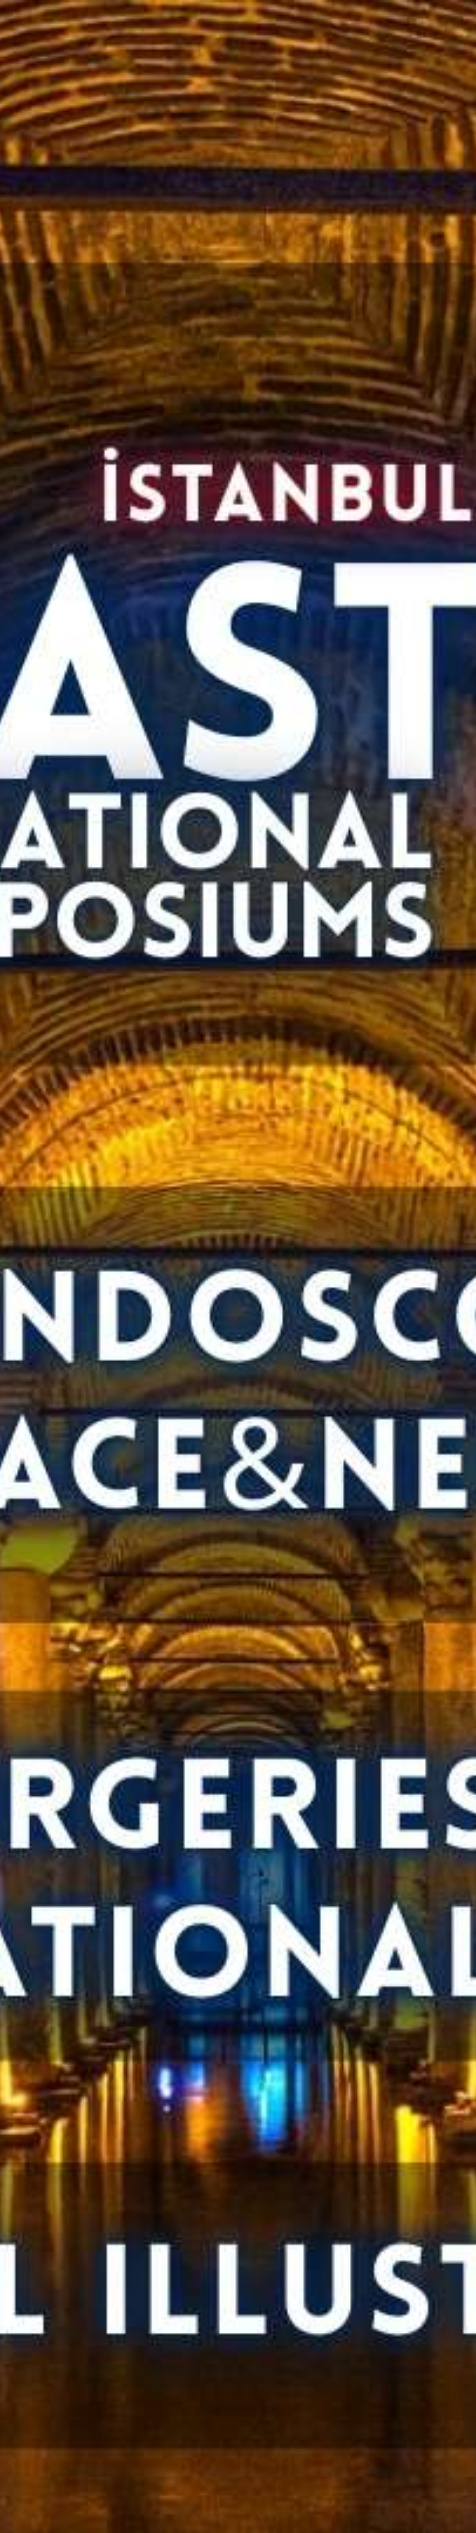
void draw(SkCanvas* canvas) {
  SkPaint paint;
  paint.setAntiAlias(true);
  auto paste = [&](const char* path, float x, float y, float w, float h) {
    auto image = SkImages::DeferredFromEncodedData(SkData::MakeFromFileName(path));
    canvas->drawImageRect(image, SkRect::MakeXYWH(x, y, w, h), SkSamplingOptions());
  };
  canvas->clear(0xffffffff);
  paste("img/1.png", 0, 0, 476, 2533);
}
